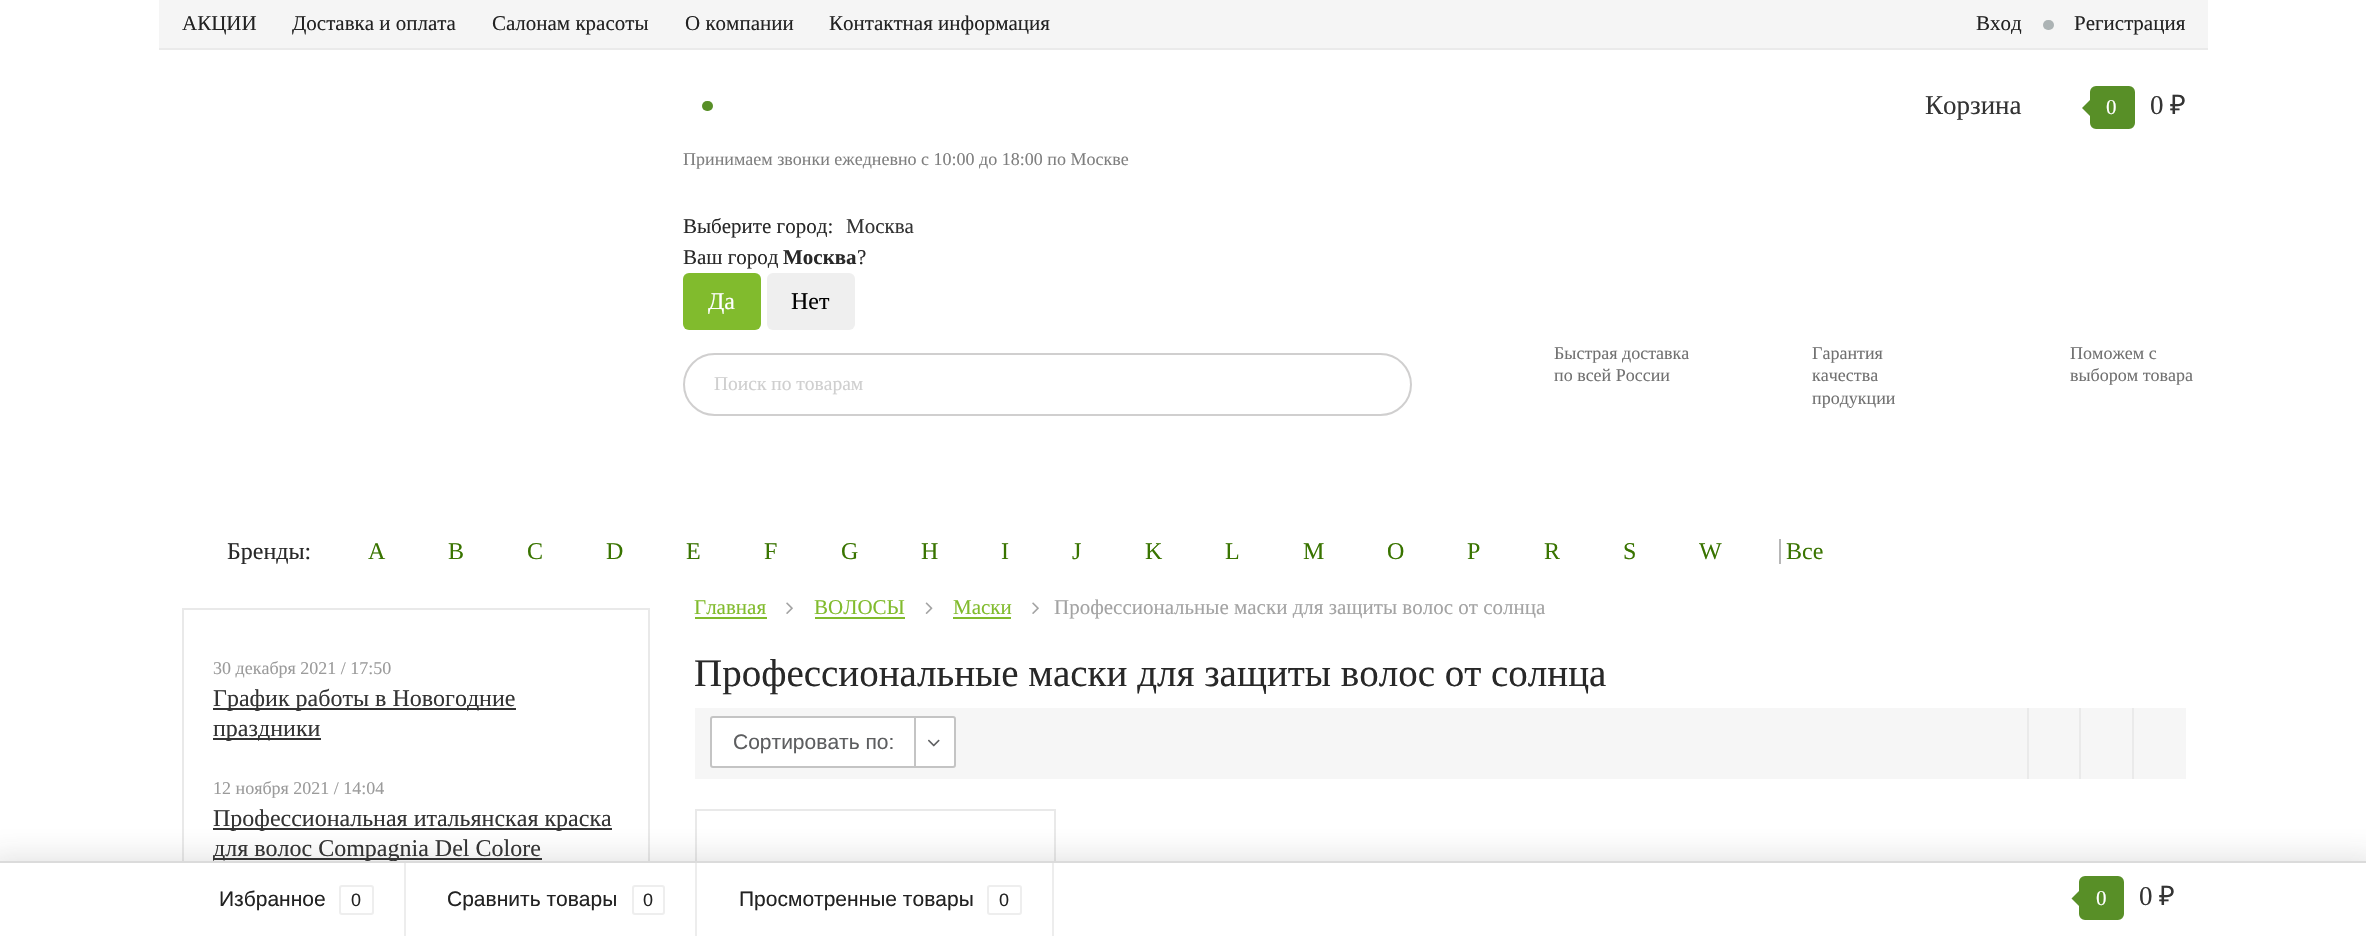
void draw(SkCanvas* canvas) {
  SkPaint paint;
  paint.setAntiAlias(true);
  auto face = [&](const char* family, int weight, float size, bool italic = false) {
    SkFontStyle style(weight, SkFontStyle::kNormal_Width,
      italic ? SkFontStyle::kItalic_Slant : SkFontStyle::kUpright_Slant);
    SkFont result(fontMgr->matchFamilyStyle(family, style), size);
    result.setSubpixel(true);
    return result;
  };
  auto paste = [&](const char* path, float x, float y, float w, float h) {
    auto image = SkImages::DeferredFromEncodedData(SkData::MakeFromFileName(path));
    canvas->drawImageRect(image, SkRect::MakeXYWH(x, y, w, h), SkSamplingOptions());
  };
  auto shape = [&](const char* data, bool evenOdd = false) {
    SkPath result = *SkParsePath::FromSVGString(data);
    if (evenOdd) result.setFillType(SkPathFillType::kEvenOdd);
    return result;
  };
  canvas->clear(0xffffffff);
  paint.setColor(0xfff5f5f5);
  canvas->drawRect(SkRect::MakeXYWH(159, 0, 2049, 48), paint);
  paint.setColor(0xffeaeaea);
  canvas->drawRect(SkRect::MakeXYWH(159, 48, 2049, 2), paint);
  paint.setColor(0xffacb3b4);
  canvas->drawRoundRect(SkRect::MakeXYWH(2043, 20, 11, 10), 5, 5, paint);
  paint.setColor(0xff588f27);
  canvas->drawRoundRect(SkRect::MakeXYWH(2093, 89, 39, 37), 3, 3, paint);
  paint.setStroke(true);
  paint.setStrokeWidth(6);
  canvas->drawRoundRect(SkRect::MakeXYWH(2093, 89, 39, 37), 3, 3, paint);
  paint.setStroke(false);
  canvas->drawPath(shape("M2095.5 94.5V121.5L2082 108Z"), paint);
  canvas->drawRoundRect(SkRect::MakeXYWH(702, 101, 11, 10), 5, 5, paint);
  paint.setColor(0xff81bb2d);
  canvas->drawRoundRect(SkRect::MakeXYWH(683, 273, 78, 57), 6, 6, paint);
  paint.setColor(0xffefefef);
  canvas->drawRoundRect(SkRect::MakeXYWH(767, 273, 88, 57), 6, 6, paint);
  paint.setStroke(true);
  paint.setStrokeWidth(2);
  paint.setColor(0xffd0cfcf);
  canvas->drawRoundRect(SkRect::MakeXYWH(684, 354, 727, 61), 30.5f, 30.5f, paint);
  paint.setStroke(false);
  paint.setColor(0xffb7b7b7);
  canvas->drawRect(SkRect::MakeXYWH(1779, 539, 2, 25), paint);
  paint.setStroke(true);
  paint.setColor(0xffe9e9e9);
  canvas->drawRect(SkRect::MakeXYWH(183, 609, 466, 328), paint);
  paint.setStroke(false);
  {
    const struct { float x, y, w, h; SkColor color; } items[] = {
      {213, 708, 303, 2, 0xff333333},
      {213, 738, 108, 2, 0xff333333},
      {213, 828, 399, 2, 0xff333333},
      {213, 858, 329, 2, 0xff333333},
      {695, 617, 72, 2, 0xff81bb2d},
    };
    for (auto [x, y, w, h, color] : items) {
      paint.setColor(color);
      canvas->drawRect(SkRect::MakeXYWH(x, y, w, h), paint);
    }
  }
  paste("img/1.png", 786, 602, 7, 12);
  canvas->drawRect(SkRect::MakeXYWH(815, 617, 90, 2), paint);
  paste("img/2.png", 925, 602, 8, 12);
  canvas->drawRect(SkRect::MakeXYWH(953, 617, 58, 2), paint);
  paste("img/1.png", 1032, 602, 7, 12);
  paint.setColor(0xfff6f6f6);
  canvas->drawRect(SkRect::MakeXYWH(695, 708, 1491, 71), paint);
  paint.setColor(0xffffffff);
  canvas->drawRoundRect(SkRect::MakeXYWH(711, 717, 244, 50), 2, 2, paint);
  paint.setStroke(true);
  paint.setColor(0xffc4c4c4);
  canvas->drawRoundRect(SkRect::MakeXYWH(711, 717, 244, 50), 2, 2, paint);
  paint.setStroke(false);
  canvas->drawRect(SkRect::MakeXYWH(914, 716, 2, 51), paint);
  paste("img/3.png", 928, 739, 12, 8);
  {
    const struct { float x, y, w, h; SkColor color; } items[] = {
      {2027, 708, 2, 71, 0xffeaeaea},
      {2079, 708, 2, 71, 0xffeaeaea},
      {2132, 708, 2, 71, 0xffeaeaea},
    };
    for (auto [x, y, w, h, color] : items) {
      paint.setColor(color);
      canvas->drawRect(SkRect::MakeXYWH(x, y, w, h), paint);
    }
  }
  paint.setStroke(true);
  paint.setColor(0xffe9e9e9);
  canvas->drawRect(SkRect::MakeXYWH(696, 810, 359, 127), paint);
  paint.setStroke(false);
  paint.setColor(0x26323232);
  paint.setMaskFilter(SkMaskFilter::MakeBlur(kNormal_SkBlurStyle, 15));
  canvas->drawRect(SkRect::MakeXYWH(-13, 858, 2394, 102), paint);
  paint.setMaskFilter(nullptr);
  paint.setColor(0xffffffff);
  canvas->drawRect(SkRect::MakeXYWH(0, 863, 2366, 73), paint);
  paint.setColor(0xffededed);
  canvas->drawRect(SkRect::MakeXYWH(404, 863, 2, 73), paint);
  paint.setStroke(true);
  paint.setColor(0xffeeeeee);
  canvas->drawRoundRect(SkRect::MakeXYWH(340, 886, 33, 28), 2, 2, paint);
  paint.setStroke(false);
  paint.setColor(0xffededed);
  canvas->drawRect(SkRect::MakeXYWH(695, 863, 2, 73), paint);
  paint.setStroke(true);
  paint.setColor(0xffeeeeee);
  canvas->drawRoundRect(SkRect::MakeXYWH(633, 886, 31, 28), 2, 2, paint);
  paint.setStroke(false);
  paint.setColor(0xffededed);
  canvas->drawRect(SkRect::MakeXYWH(1052, 863, 2, 73), paint);
  paint.setStroke(true);
  paint.setColor(0xffeeeeee);
  canvas->drawRoundRect(SkRect::MakeXYWH(988, 886, 33, 28), 2, 2, paint);
  paint.setStroke(false);
  paint.setColor(0xff588f27);
  canvas->drawRoundRect(SkRect::MakeXYWH(2082, 879, 39, 38), 3, 3, paint);
  paint.setStroke(true);
  paint.setStrokeWidth(6);
  canvas->drawRoundRect(SkRect::MakeXYWH(2082, 879, 39, 38), 3, 3, paint);
  paint.setStroke(false);
  canvas->drawPath(shape("M2085 885V912L2071.5 898.5Z"), paint);
  auto f0 = face("Liberation Serif", 400, 21);
  paint.setColor(0xff222222);
  {
    const struct { const char* s; float x, y; } items[] = {
      {"АКЦИИ", 182, 30},
      {"Доставка и оплата", 292, 30},
      {"Салонам красоты", 492, 30},
      {"О компании", 685, 30},
      {"Контактная информация", 829, 30},
      {"Вход", 1976, 30},
      {"Регистрация", 2074, 30},
    };
    for (auto [s, x, y] : items) {
      canvas->drawString(s, x, y, f0, paint);
    }
  }
  auto f1 = face("Liberation Serif", 400, 27);
  paint.setColor(0xff343434);
  canvas->drawString("Корзина", 1925, 114, f1, paint);
  paint.setColor(0xffffffff);
  canvas->drawString("0", 2106, 114, f0, paint);
  paint.setColor(0xff343434);
  canvas->drawString("0", 2150, 114, f1, paint);
  auto f2 = face("Noto Sans", 400, 27);
  canvas->drawString("₽", 2170, 114, f2, paint);
  auto f3 = face("Liberation Serif", 400, 18);
  paint.setColor(0xff7f7f7f);
  canvas->drawString("Принимаем звонки ежедневно с 10:00 до 18:00 по Москве", 683, 165, f3, paint);
  paint.setColor(0xff282828);
  canvas->drawString("Выберите город:", 683, 233, f0, paint);
  paint.setColor(0xff343434);
  canvas->drawString("Москва", 846, 233, f0, paint);
  paint.setColor(0xff282828);
  canvas->drawString("Ваш город", 683, 264, f0, paint);
  auto f4 = face("Liberation Serif", 700, 21);
  canvas->drawString("Москва", 783, 264, f4, paint);
  canvas->drawString("?", 857, 264, f0, paint);
  auto f5 = face("Liberation Serif", 400, 24);
  paint.setColor(0xffffffff);
  canvas->drawString("Да", 708, 309, f5, paint);
  paint.setColor(0xff000000);
  canvas->drawString("Нет", 791, 309, f5, paint);
  auto f6 = face("Liberation Serif", 400, 19.5f);
  paint.setColor(0xffcfcfcf);
  canvas->drawString("Поиск по товарам", 714, 390, f6, paint);
  paint.setColor(0xff717171);
  {
    const struct { const char* s; float x, y; } items[] = {
      {"Быстрая доставка", 1554, 359},
      {"по всей России", 1554, 381},
      {"Гарантия", 1812, 359},
      {"качества", 1812, 381},
      {"продукции", 1812, 404},
      {"Поможем с", 2070, 359},
      {"выбором товара", 2070, 381},
    };
    for (auto [s, x, y] : items) {
      canvas->drawString(s, x, y, f3, paint);
    }
  }
  paint.setColor(0xff282828);
  canvas->drawString("Бренды:", 227, 559, f5, paint);
  paint.setColor(0xff397400);
  {
    const struct { const char* s; float x, y; } items[] = {
      {"A", 368, 559},
      {"B", 448, 559},
      {"C", 527, 559},
      {"D", 606, 559},
      {"E", 686, 559},
      {"F", 764, 559},
      {"G", 841, 559},
      {"H", 921, 559},
      {"I", 1001, 559},
      {"J", 1072, 559},
      {"K", 1145, 559},
      {"L", 1225, 559},
      {"M", 1303, 559},
      {"O", 1387, 559},
      {"P", 1467, 559},
      {"R", 1544, 559},
      {"S", 1623, 559},
      {"W", 1699, 559},
      {"Все", 1786, 559},
    };
    for (auto [s, x, y] : items) {
      canvas->drawString(s, x, y, f5, paint);
    }
  }
  paint.setColor(0xff9b9b9b);
  canvas->drawString("30 декабря 2021 / 17:50", 213, 674, f3, paint);
  paint.setColor(0xff343434);
  canvas->drawString("График работы в Новогодние", 213, 706, f5, paint);
  canvas->drawString("праздники", 213, 736, f5, paint);
  paint.setColor(0xff9b9b9b);
  canvas->drawString("12 ноября 2021 / 14:04", 213, 794, f3, paint);
  paint.setColor(0xff343434);
  canvas->drawString("Профессиональная итальянская краска", 213, 826, f5, paint);
  canvas->drawString("для волос Compagnia Del Colore", 213, 856, f5, paint);
  paint.setColor(0xff81bb2d);
  {
    const struct { const char* s; float x, y; } items[] = {
      {"Главная", 694, 614},
      {"ВОЛОСЫ", 814, 614},
      {"Маски", 953, 614},
    };
    for (auto [s, x, y] : items) {
      canvas->drawString(s, x, y, f0, paint);
    }
  }
  paint.setColor(0xffa3a3a3);
  canvas->drawString("Профессиональные маски для защиты волос от солнца", 1054, 614, f0, paint);
  auto f7 = face("Liberation Serif", 400, 39);
  paint.setColor(0xff282828);
  canvas->drawString("Профессиональные маски для защиты волос от солнца", 694, 686, f7, paint);
  auto f8 = face("Liberation Sans", 400, 21);
  paint.setColor(0xff5d5e60);
  canvas->drawString("Сортировать по:", 733, 749, f8, paint);
  paint.setColor(0xffdbdbdb);
  canvas->drawRect(SkRect::MakeXYWH(0, 861, 2366, 2), paint);
  paint.setColor(0xff222222);
  canvas->drawString("Избранное", 219, 906, f8, paint);
  auto f9 = face("Liberation Sans", 400, 18);
  canvas->drawString("0", 351, 906, f9, paint);
  canvas->drawString("Сравнить товары", 447, 906, f8, paint);
  canvas->drawString("0", 643, 906, f9, paint);
  canvas->drawString("Просмотренные товары", 739, 906, f8, paint);
  canvas->drawString("0", 999, 906, f9, paint);
  paint.setColor(0xffffffff);
  canvas->drawString("0", 2096, 905, f0, paint);
  paint.setColor(0xff343434);
  canvas->drawString("0", 2139, 905, f1, paint);
  canvas->drawString("₽", 2159, 905, f2, paint);
}
